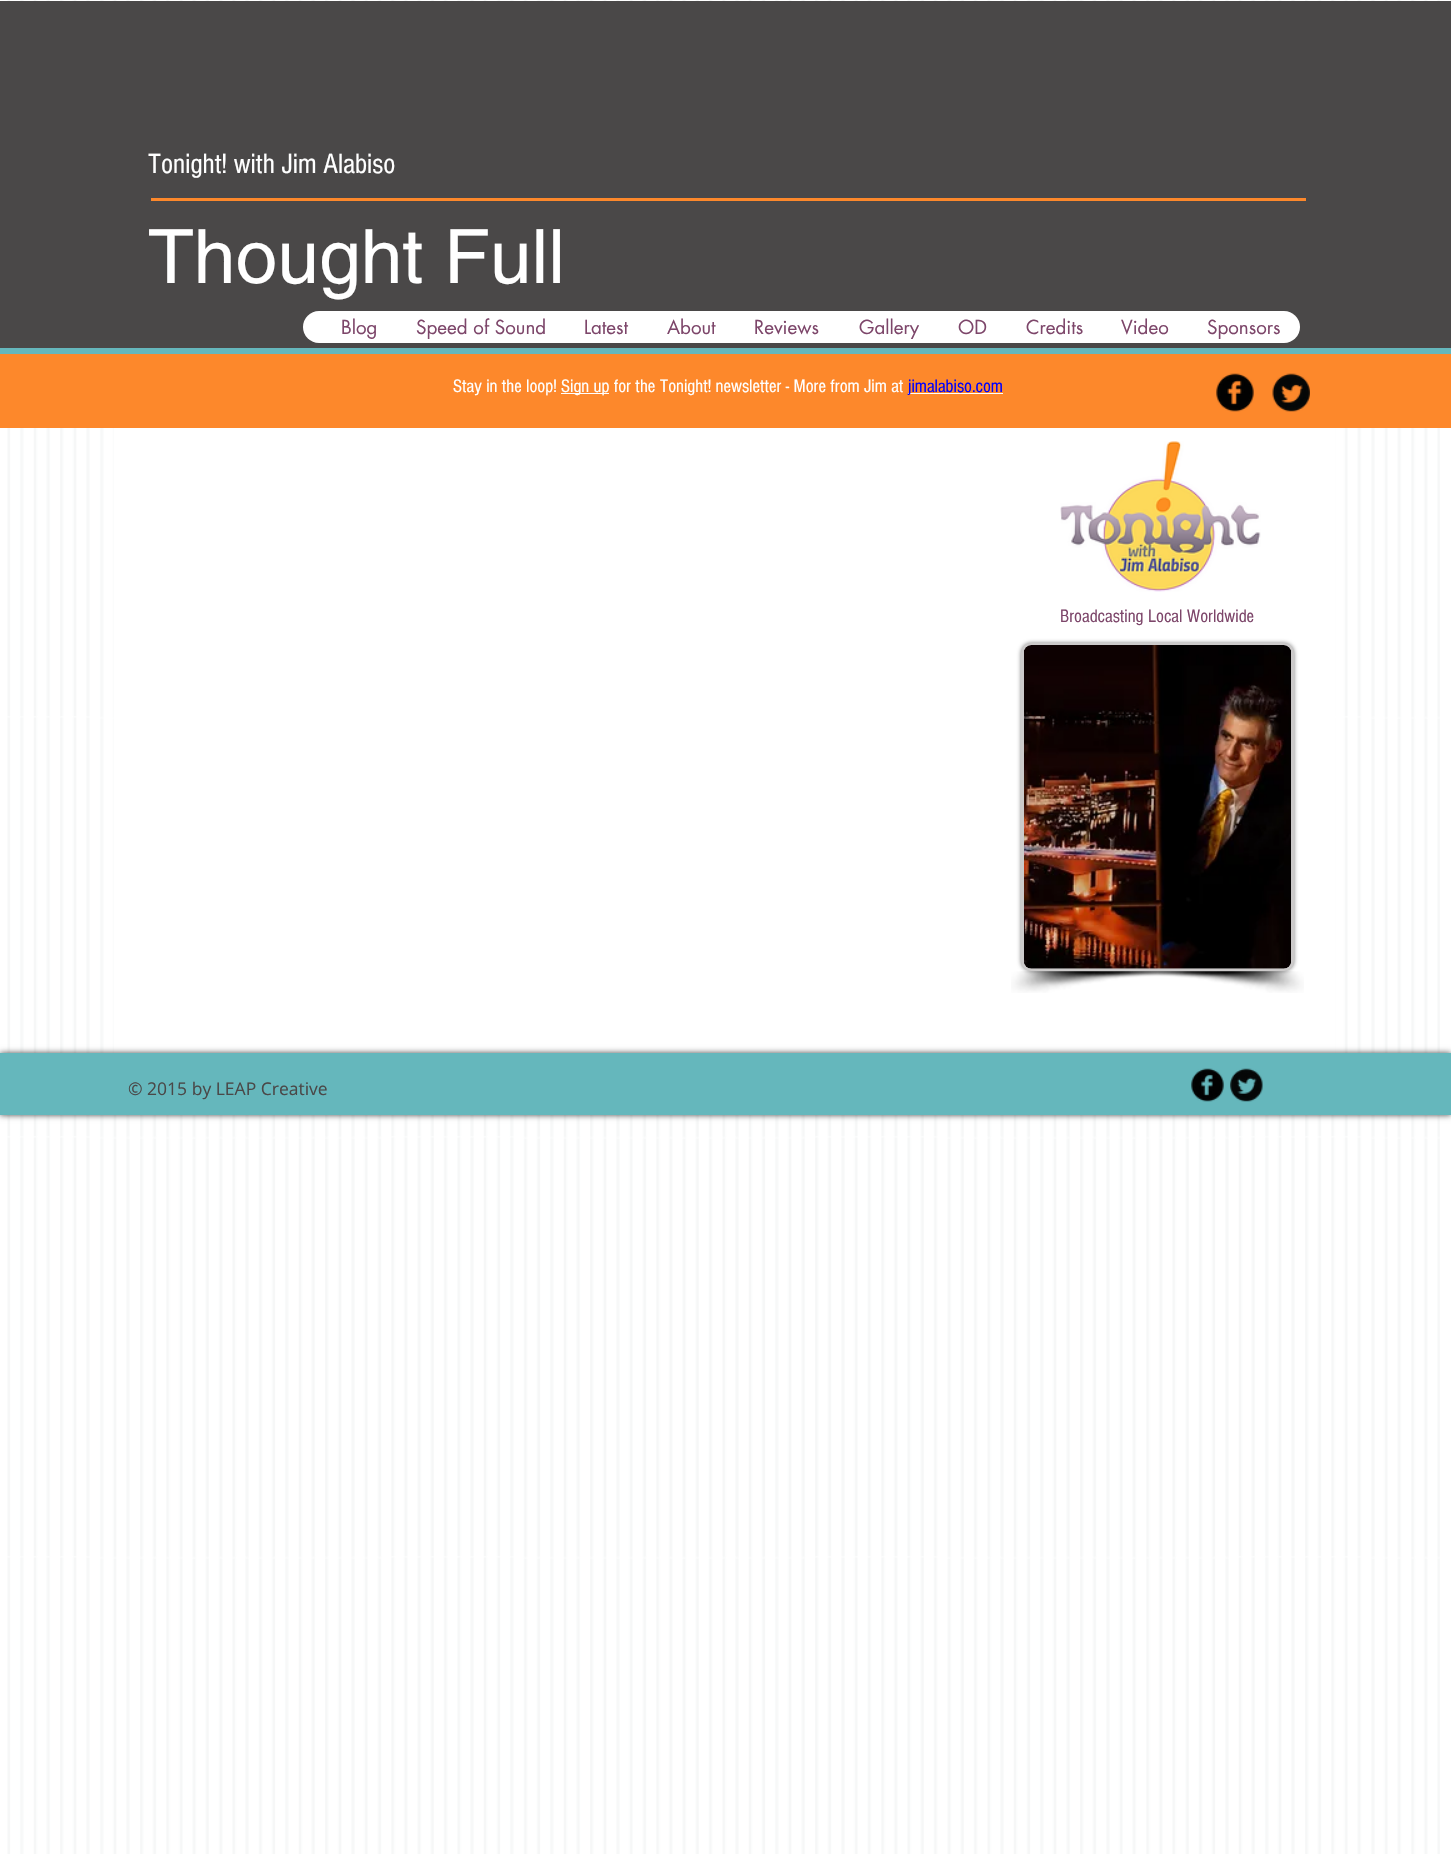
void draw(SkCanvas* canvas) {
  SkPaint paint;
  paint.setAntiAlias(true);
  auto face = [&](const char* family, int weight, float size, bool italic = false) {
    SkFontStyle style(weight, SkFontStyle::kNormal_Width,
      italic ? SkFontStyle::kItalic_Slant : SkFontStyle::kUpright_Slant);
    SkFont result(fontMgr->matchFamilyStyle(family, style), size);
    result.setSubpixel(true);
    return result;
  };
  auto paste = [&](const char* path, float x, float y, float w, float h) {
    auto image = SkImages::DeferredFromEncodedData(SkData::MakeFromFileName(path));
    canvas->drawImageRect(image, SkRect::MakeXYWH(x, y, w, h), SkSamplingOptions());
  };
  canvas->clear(0xffffffff);
  paste("img/1.png", 7, 0, 1433, 1854);
  {
    const struct { float x, y, w, h; SkColor color; } items[] = {
      {0, 1, 1451, 347, 0xff4a4848},
      {0, 348, 1451, 6, 0xff65b7bc},
      {151, 198, 1155, 3, 0xfffd882b},
    };
    for (auto [x, y, w, h, color] : items) {
      paint.setColor(color);
      canvas->drawRect(SkRect::MakeXYWH(x, y, w, h), paint);
    }
  }
  paint.setColor(0xffffffff);
  canvas->drawRoundRect(SkRect::MakeXYWH(303, 311, 997, 32), 16, 16, paint);
  {
    const struct { float x, y, w, h; SkColor color; } items[] = {
      {0, 354, 1451, 74, 0xfffd882b},
      {561, 393, 48, 1, 0xffffffff},
      {908, 393, 95, 1, 0xffffffff},
    };
    for (auto [x, y, w, h, color] : items) {
      paint.setColor(color);
      canvas->drawRect(SkRect::MakeXYWH(x, y, w, h), paint);
    }
  }
  paste("img/2.png", 1216, 373, 38, 39);
  paste("img/3.png", 1272, 373, 38, 39);
  canvas->drawRect(SkRect::MakeXYWH(114, 428, 1221, 625), paint);
  paste("img/4.png", 1060, 441, 201, 151);
  paint.setColor(0x80000000);
  paint.setMaskFilter(SkMaskFilter::MakeBlur(kNormal_SkBlurStyle, 2));
  canvas->drawRoundRect(SkRect::MakeXYWH(1021, 643, 273, 328), 10, 10, paint);
  paint.setMaskFilter(nullptr);
  paint.setStroke(true);
  paint.setStrokeWidth(3);
  paint.setColor(0xffcccaca);
  canvas->drawRoundRect(SkRect::MakeXYWH(1022.5f, 644.5f, 270, 325), 8.5f, 8.5f, paint);
  paste("img/5.png", 1024, 645, 267, 324);
  paste("img/6.png", 1011, 971, 183, 22);
  paste("img/7.png", 1132, 971, 172, 22);
  paint.setStroke(false);
  paint.setColor(0xb3000000);
  paint.setMaskFilter(SkMaskFilter::MakeBlur(kNormal_SkBlurStyle, 3));
  canvas->drawRect(SkRect::MakeXYWH(0, 1053, 1451, 62), paint);
  paint.setMaskFilter(nullptr);
  paint.setColor(0xff65b7bc);
  canvas->drawRect(SkRect::MakeXYWH(0, 1053, 1451, 62), paint);
  paste("img/8.png", 1191, 1068, 33, 34);
  paste("img/9.png", 1230, 1068, 33, 34);
  auto f0 = face("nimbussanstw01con", 400, 28.75f);
  paint.setColor(0xffffffff);
  canvas->drawString("Tonight! with Jim Alabiso", 148, 173, f0, paint);
  auto f1 = face("helvetica", 400, 75);
  canvas->drawString("Thought Full", 148, 283, f1, paint);
  auto f2 = face("futura", 400, 18.75f);
  paint.setColor(0xff7d466a);
  {
    const struct { const char* s; float x, y; } items[] = {
      {"Blog", 341, 334},
      {"Speed of Sound", 416, 334},
      {"Latest", 584, 334},
      {"About", 667, 334},
      {"Reviews", 754, 334},
      {"Gallery", 859, 334},
      {"OD", 958, 334},
      {"Credits", 1026, 334},
      {"Video", 1121, 334},
      {"Sponsors", 1207, 334},
    };
    for (auto [s, x, y] : items) {
      canvas->drawString(s, x, y, f2, paint);
    }
  }
  auto f3 = face("nimbussanstw01con", 400, 18.75f);
  paint.setColor(0xffffffff);
  canvas->drawString("Stay in the loop!", 453, 392, f3, paint);
  canvas->drawString("Sign up for the Tonight! newsletter - More from Jim at", 561, 392, f3, paint);
  paint.setColor(0xff0000ff);
  canvas->drawString("jimalabiso.com", 908, 392, f3, paint);
  paint.setColor(0xff7d466a);
  canvas->drawString("Broadcasting Local Worldwide", 1060, 622, f3, paint);
  auto f4 = face("Open Sans", 400, 17.5f);
  paint.setColor(0xff4a4848);
  canvas->drawString("© 2015 by LEAP Creative", 128, 1095, f4, paint);
}
